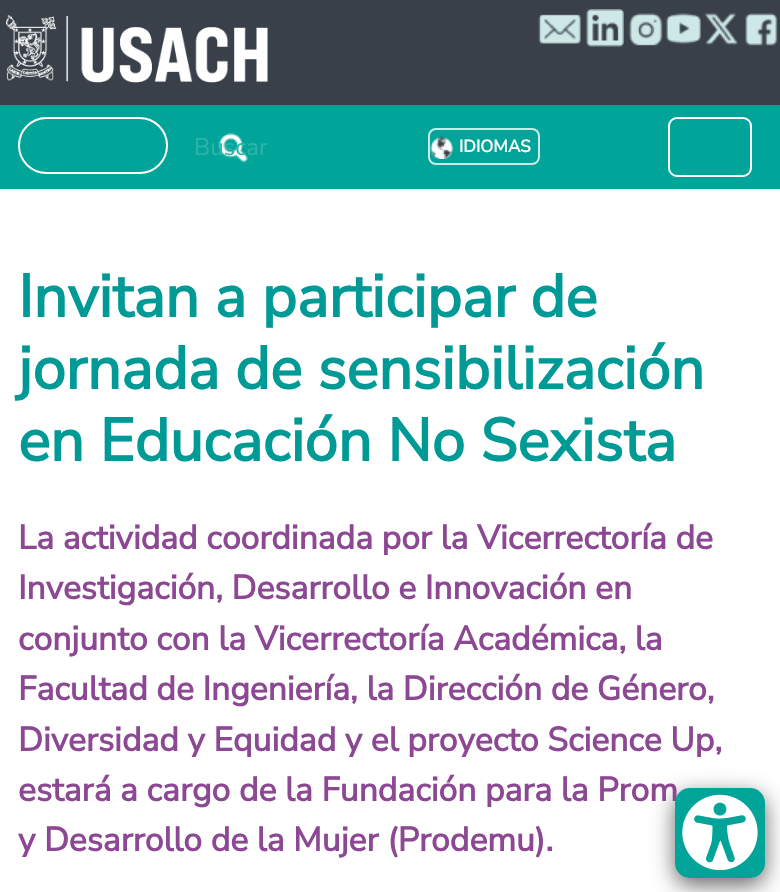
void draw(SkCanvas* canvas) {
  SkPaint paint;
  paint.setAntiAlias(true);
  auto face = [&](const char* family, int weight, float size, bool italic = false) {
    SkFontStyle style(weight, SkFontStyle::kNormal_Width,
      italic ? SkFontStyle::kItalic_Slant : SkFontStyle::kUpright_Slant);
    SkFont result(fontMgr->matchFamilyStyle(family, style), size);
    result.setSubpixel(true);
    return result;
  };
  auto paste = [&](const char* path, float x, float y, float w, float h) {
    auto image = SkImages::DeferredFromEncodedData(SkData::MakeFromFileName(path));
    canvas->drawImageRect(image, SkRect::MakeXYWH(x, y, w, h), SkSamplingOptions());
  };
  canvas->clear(0xffffffff);
  paint.setColor(0xff00a499);
  canvas->drawRect(SkRect::MakeXYWH(0, 105, 780, 84), paint);
  paint.setColor(0xff394049);
  canvas->drawRect(SkRect::MakeXYWH(0, 0, 780, 105), paint);
  paste("img/1.png", 6, 15, 262, 68);
  paste("img/2.png", 538, 14, 43, 30);
  paste("img/3.png", 586, 9, 38, 38);
  paste("img/4.png", 628, 13, 35, 33);
  paste("img/5.png", 665, 13, 36, 31);
  paste("img/6.png", 704, 13, 34, 32);
  paste("img/7.png", 745, 13, 33, 33);
  paint.setColor(0x99000000);
  paint.setMaskFilter(SkMaskFilter::MakeBlur(kNormal_SkBlurStyle, 11));
  canvas->drawRoundRect(SkRect::MakeXYWH(675, 795, 90, 90), 15, 15, paint);
  paint.setMaskFilter(nullptr);
  paint.setStroke(true);
  paint.setStrokeWidth(2);
  paint.setColor(0xffffffff);
  canvas->drawRoundRect(SkRect::MakeXYWH(19, 118, 148, 55), 27.5f, 27.5f, paint);
  paste("img/9.png", 218, 133, 30, 30);
  paste("img/10.png", 430, 136, 23, 23);
  paint.setColor(0xffcee8e8);
  canvas->drawRoundRect(SkRect::MakeXYWH(429, 129, 110, 35), 7, 7, paint);
  paint.setColor(0xffffffff);
  canvas->drawRoundRect(SkRect::MakeXYWH(669, 118, 82, 58), 8, 8, paint);
  auto f0 = face("Nunito Sans", 400, 24);
  paint.setStroke(false);
  paint.setColor(0xff2cb4ab);
  canvas->drawString("Buscar", 194, 155, f0, paint);
  auto f1 = face("Nunito Sans", 700, 17);
  paint.setColor(0xffffffff);
  canvas->drawString("IDIOMAS", 459, 152, f1, paint);
  auto f2 = face("Nunito Sans", 700, 60);
  paint.setColor(0xff009a96);
  {
    const struct { const char* s; float x, y; } items[] = {
      {"Invitan a participar de", 18, 317},
      {"jornada de sensibilización", 18, 389},
      {"en Educación No Sexista", 18, 461},
    };
    for (auto [s, x, y] : items) {
      canvas->drawString(s, x, y, f2, paint);
    }
  }
  auto f3 = face("Nunito Sans", 700, 33.6f);
  paint.setColor(0xff8c4893);
  {
    const struct { const char* s; float x, y; } items[] = {
      {"La actividad coordinada por la Vicerrectoría de", 18, 549},
      {"Investigación, Desarrollo e Innovación en", 18, 599},
      {"conjunto con la Vicerrectoría Académica, la", 18, 650},
      {"Facultad de Ingeniería, la Dirección de Género,", 18, 700},
      {"Diversidad y Equidad y el proyecto Science Up,", 18, 751},
      {"estará a cargo de la Fundación para la Prom", 18, 801},
    };
    for (auto [s, x, y] : items) {
      canvas->drawString(s, x, y, f3, paint);
    }
  }
  paint.setColor(0xff00a499);
  canvas->drawRoundRect(SkRect::MakeXYWH(675, 788, 90, 90), 15, 15, paint);
  paste("img/8.png", 682, 794, 76, 77);
  paint.setColor(0xff8c4893);
  canvas->drawString("y Desarrollo de la Mujer (Prodemu).", 18, 851, f3, paint);
}
